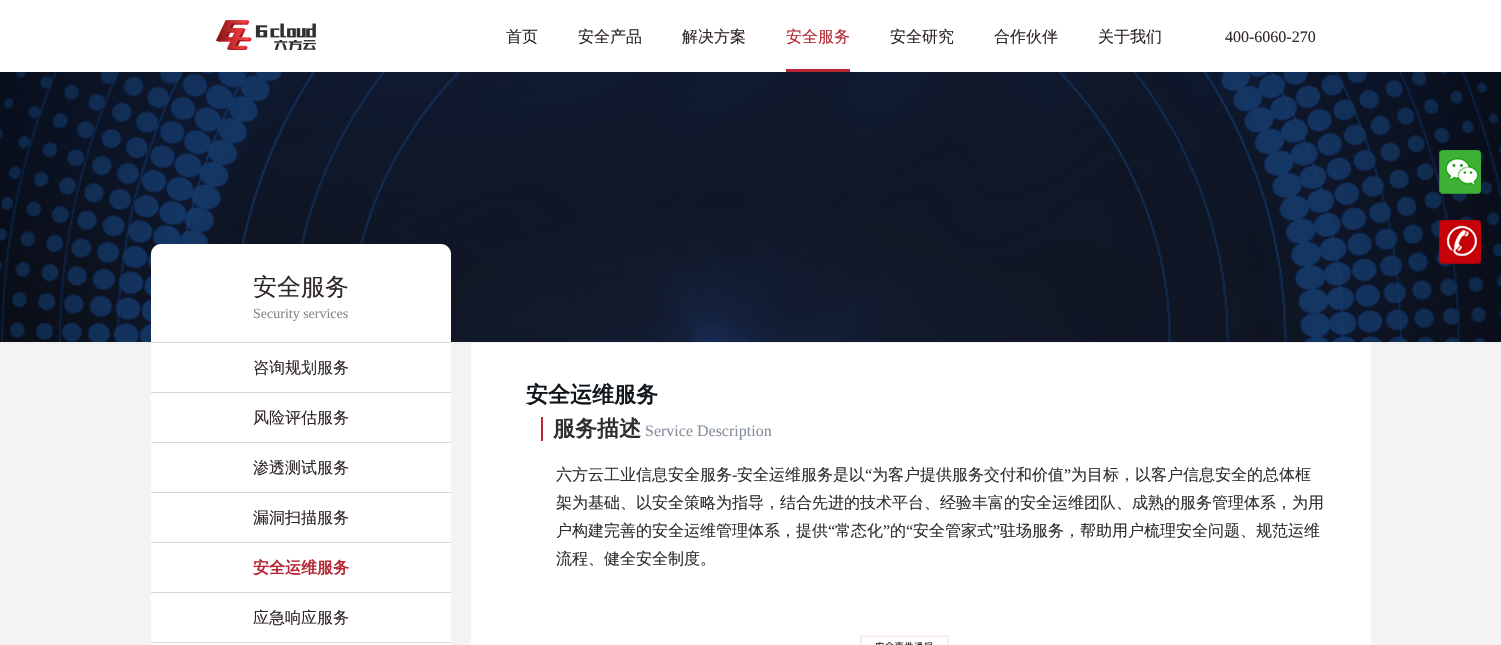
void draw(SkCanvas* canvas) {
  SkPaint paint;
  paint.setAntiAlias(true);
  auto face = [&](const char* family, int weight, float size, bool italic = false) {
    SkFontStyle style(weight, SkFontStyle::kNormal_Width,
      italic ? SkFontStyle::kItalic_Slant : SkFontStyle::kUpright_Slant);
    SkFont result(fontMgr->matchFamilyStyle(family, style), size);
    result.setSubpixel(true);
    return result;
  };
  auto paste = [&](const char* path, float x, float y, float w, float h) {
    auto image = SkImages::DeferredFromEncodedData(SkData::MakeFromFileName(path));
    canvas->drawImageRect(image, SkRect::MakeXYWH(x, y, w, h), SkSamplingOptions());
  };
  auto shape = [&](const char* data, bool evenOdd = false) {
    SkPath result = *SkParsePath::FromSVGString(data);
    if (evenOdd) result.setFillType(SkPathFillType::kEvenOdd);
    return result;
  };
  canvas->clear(0xffffffff);
  paste("img/1.png", 216, 20, 100, 30);
  paint.setColor(0xffb52734);
  canvas->drawRect(SkRect::MakeXYWH(786, 69, 64, 3), paint);
  paint.setColor(0xfff3f3f3);
  canvas->drawRect(SkRect::MakeXYWH(0, 342, 1501, 1), paint);
  paste("img/2.png", 0, 72, 1501, 270);
  paste("img/3.png", 1439, 150, 42, 44);
  paste("img/4.png", 1439, 220, 42, 44);
  canvas->drawRect(SkRect::MakeXYWH(0, 344, 1501, 301), paint);
  paint.setColor(0xffeeeeee);
  canvas->drawRect(SkRect::MakeXYWH(0, 343, 1501, 1), paint);
  paint.setColor(0xffffffff);
  canvas->drawPath(shape("M161 244H441C446.5 244 451 248.5 451 254V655H151V254C151 248.5 155.5 244 161 244Z"), paint);
  {
    const struct { float x, y, w, h; SkColor color; } items[] = {
      {151, 342, 300, 1, 0xffd6d6d6},
      {151, 392, 300, 1, 0xffd6d6d6},
      {151, 442, 300, 1, 0xffd6d6d6},
      {151, 492, 300, 1, 0xffd6d6d6},
      {151, 542, 300, 1, 0xffd6d6d6},
      {151, 592, 300, 1, 0xffd6d6d6},
      {151, 642, 300, 1, 0xffd6d6d6},
      {471, 343, 900, 302, 0xffffffff},
      {541, 417, 2, 24, 0xffb52734},
    };
    for (auto [x, y, w, h, color] : items) {
      paint.setColor(color);
      canvas->drawRect(SkRect::MakeXYWH(x, y, w, h), paint);
    }
  }
  paste("img/5.png", 860, 635, 89, 10);
  auto f0 = face("WenQuanYi Zen Hei", 500, 16);
  paint.setColor(0xff2f2725);
  {
    const struct { const char* s; float x, y; } items[] = {
      {"首页", 506, 42},
      {"安全产品", 578, 42},
      {"解决方案", 682, 42},
    };
    for (auto [s, x, y] : items) {
      canvas->drawString(s, x, y, f0, paint);
    }
  }
  paint.setColor(0xffb52734);
  canvas->drawString("安全服务", 786, 42, f0, paint);
  paint.setColor(0xff2f2725);
  {
    const struct { const char* s; float x, y; } items[] = {
      {"安全研究", 890, 42},
      {"合作伙伴", 994, 42},
      {"关于我们", 1098, 42},
    };
    for (auto [s, x, y] : items) {
      canvas->drawString(s, x, y, f0, paint);
    }
  }
  auto f1 = face("Liberation Serif", 400, 16);
  canvas->drawString("400-6060-270", 1225, 42, f1, paint);
  auto f2 = face("WenQuanYi Zen Hei", 500, 24);
  canvas->drawString("安全服务", 253, 295, f2, paint);
  auto f3 = face("Liberation Serif", 400, 14);
  paint.setColor(0xff898989);
  canvas->drawString("Security services", 253, 318, f3, paint);
  paint.setColor(0xff2f2725);
  {
    const struct { const char* s; float x, y; } items[] = {
      {"咨询规划服务", 253, 373},
      {"风险评估服务", 253, 423},
      {"渗透测试服务", 253, 473},
      {"漏洞扫描服务", 253, 523},
    };
    for (auto [s, x, y] : items) {
      canvas->drawString(s, x, y, f0, paint);
    }
  }
  auto f4 = face("WenQuanYi Zen Hei", 700, 16);
  paint.setColor(0xffb52734);
  canvas->drawString("安全运维服务", 253, 573, f4, paint);
  paint.setColor(0xff2f2725);
  canvas->drawString("应急响应服务", 253, 623, f0, paint);
  auto f5 = face("WenQuanYi Zen Hei", 700, 22);
  paint.setColor(0xff10161a);
  canvas->drawString("安全运维服务", 526, 402, f5, paint);
  paint.setColor(0xff2f2f2f);
  canvas->drawString("服务描述", 553, 436, f5, paint);
  paint.setColor(0xff868f9b);
  canvas->drawString("Service Description", 645, 436, f1, paint);
  paint.setColor(0xff2f2f2f);
  canvas->drawString("六方云工业信息安全服务", 556, 480, f0, paint);
  canvas->drawString("安全运维服务是以", 737, 480, f0, paint);
  canvas->drawString("“", 865, 480, f1, paint);
  canvas->drawString("为客户提供服务交付和价值", 872, 480, f0, paint);
  canvas->drawString("”", 1064, 480, f1, paint);
  canvas->drawString("为目标，以客户信息安全的总体框", 1071, 480, f0, paint);
  canvas->drawString("-", 732, 480, f1, paint);
  canvas->drawString("架为基础、以安全策略为指导，结合先进的技术平台、经验丰富的安全运维团队、成熟的服务管理体系，为用", 556, 508, f0, paint);
  canvas->drawString("户构建完善的安全运维管理体系，提供", 556, 536, f0, paint);
  canvas->drawString("“", 828, 536, f1, paint);
  canvas->drawString("常态化", 835, 536, f0, paint);
  canvas->drawString("”", 883, 536, f1, paint);
  canvas->drawString("的", 890, 536, f0, paint);
  canvas->drawString("“", 906, 536, f1, paint);
  canvas->drawString("安全管家式", 913, 536, f0, paint);
  canvas->drawString("”", 993, 536, f1, paint);
  canvas->drawString("驻场服务，帮助用户梳理安全问题、规范运维", 1000, 536, f0, paint);
  canvas->drawString("流程、健全安全制度。", 556, 564, f0, paint);
}
